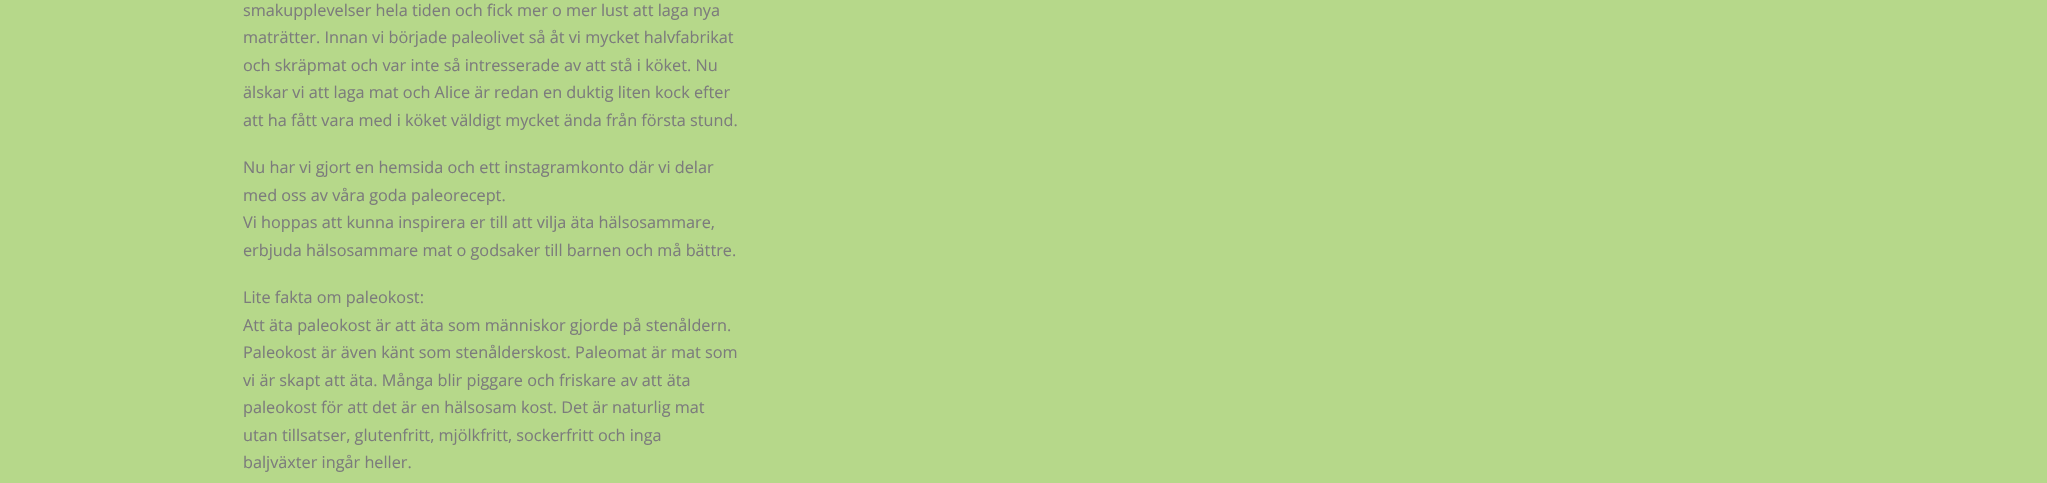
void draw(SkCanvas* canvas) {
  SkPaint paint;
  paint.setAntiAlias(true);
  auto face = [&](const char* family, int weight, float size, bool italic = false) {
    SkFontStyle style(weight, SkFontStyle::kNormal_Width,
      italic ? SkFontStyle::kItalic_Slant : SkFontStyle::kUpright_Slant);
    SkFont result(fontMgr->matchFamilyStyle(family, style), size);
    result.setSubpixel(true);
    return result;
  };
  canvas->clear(0xffb6d88a);
  auto f0 = face("Open Sans", 400, 16.25f);
  paint.setColor(0xff7c7c7c);
  {
    const struct { const char* s; float x, y; } items[] = {
      {"smakupplevelser hela tiden och fick mer o mer lust att laga nya", 243, 16},
      {"maträtter. Innan vi började paleolivet så åt vi mycket halvfabrikat", 243, 43},
      {"och skräpmat och var inte så intresserade av att stå i köket. Nu", 243, 71},
      {"älskar vi att laga mat och Alice är redan en duktig liten kock efter", 243, 98},
      {"att ha fått vara med i köket väldigt mycket ända från första stund.", 243, 126},
      {"Nu har vi gjort en hemsida och ett instagramkonto där vi delar", 243, 173},
      {"med oss av våra goda paleorecept.", 243, 201},
      {"Vi hoppas att kunna inspirera er till att vilja äta hälsosammare,", 243, 228},
      {"erbjuda hälsosammare mat o godsaker till barnen och må bättre.", 243, 256},
      {"Lite fakta om paleokost:", 243, 303},
      {"Att äta paleokost är att äta som människor gjorde på stenåldern.", 243, 331},
      {"Paleokost är även känt som stenålderskost. Paleomat är mat som", 243, 358},
      {"vi är skapt att äta. Många blir piggare och friskare av att äta", 243, 386},
      {"paleokost för att det är en hälsosam kost. Det är naturlig mat", 243, 413},
      {"utan tillsatser, glutenfritt, mjölkfritt, sockerfritt och inga", 243, 441},
      {"baljväxter ingår heller.", 243, 468},
    };
    for (auto [s, x, y] : items) {
      canvas->drawString(s, x, y, f0, paint);
    }
  }
}
